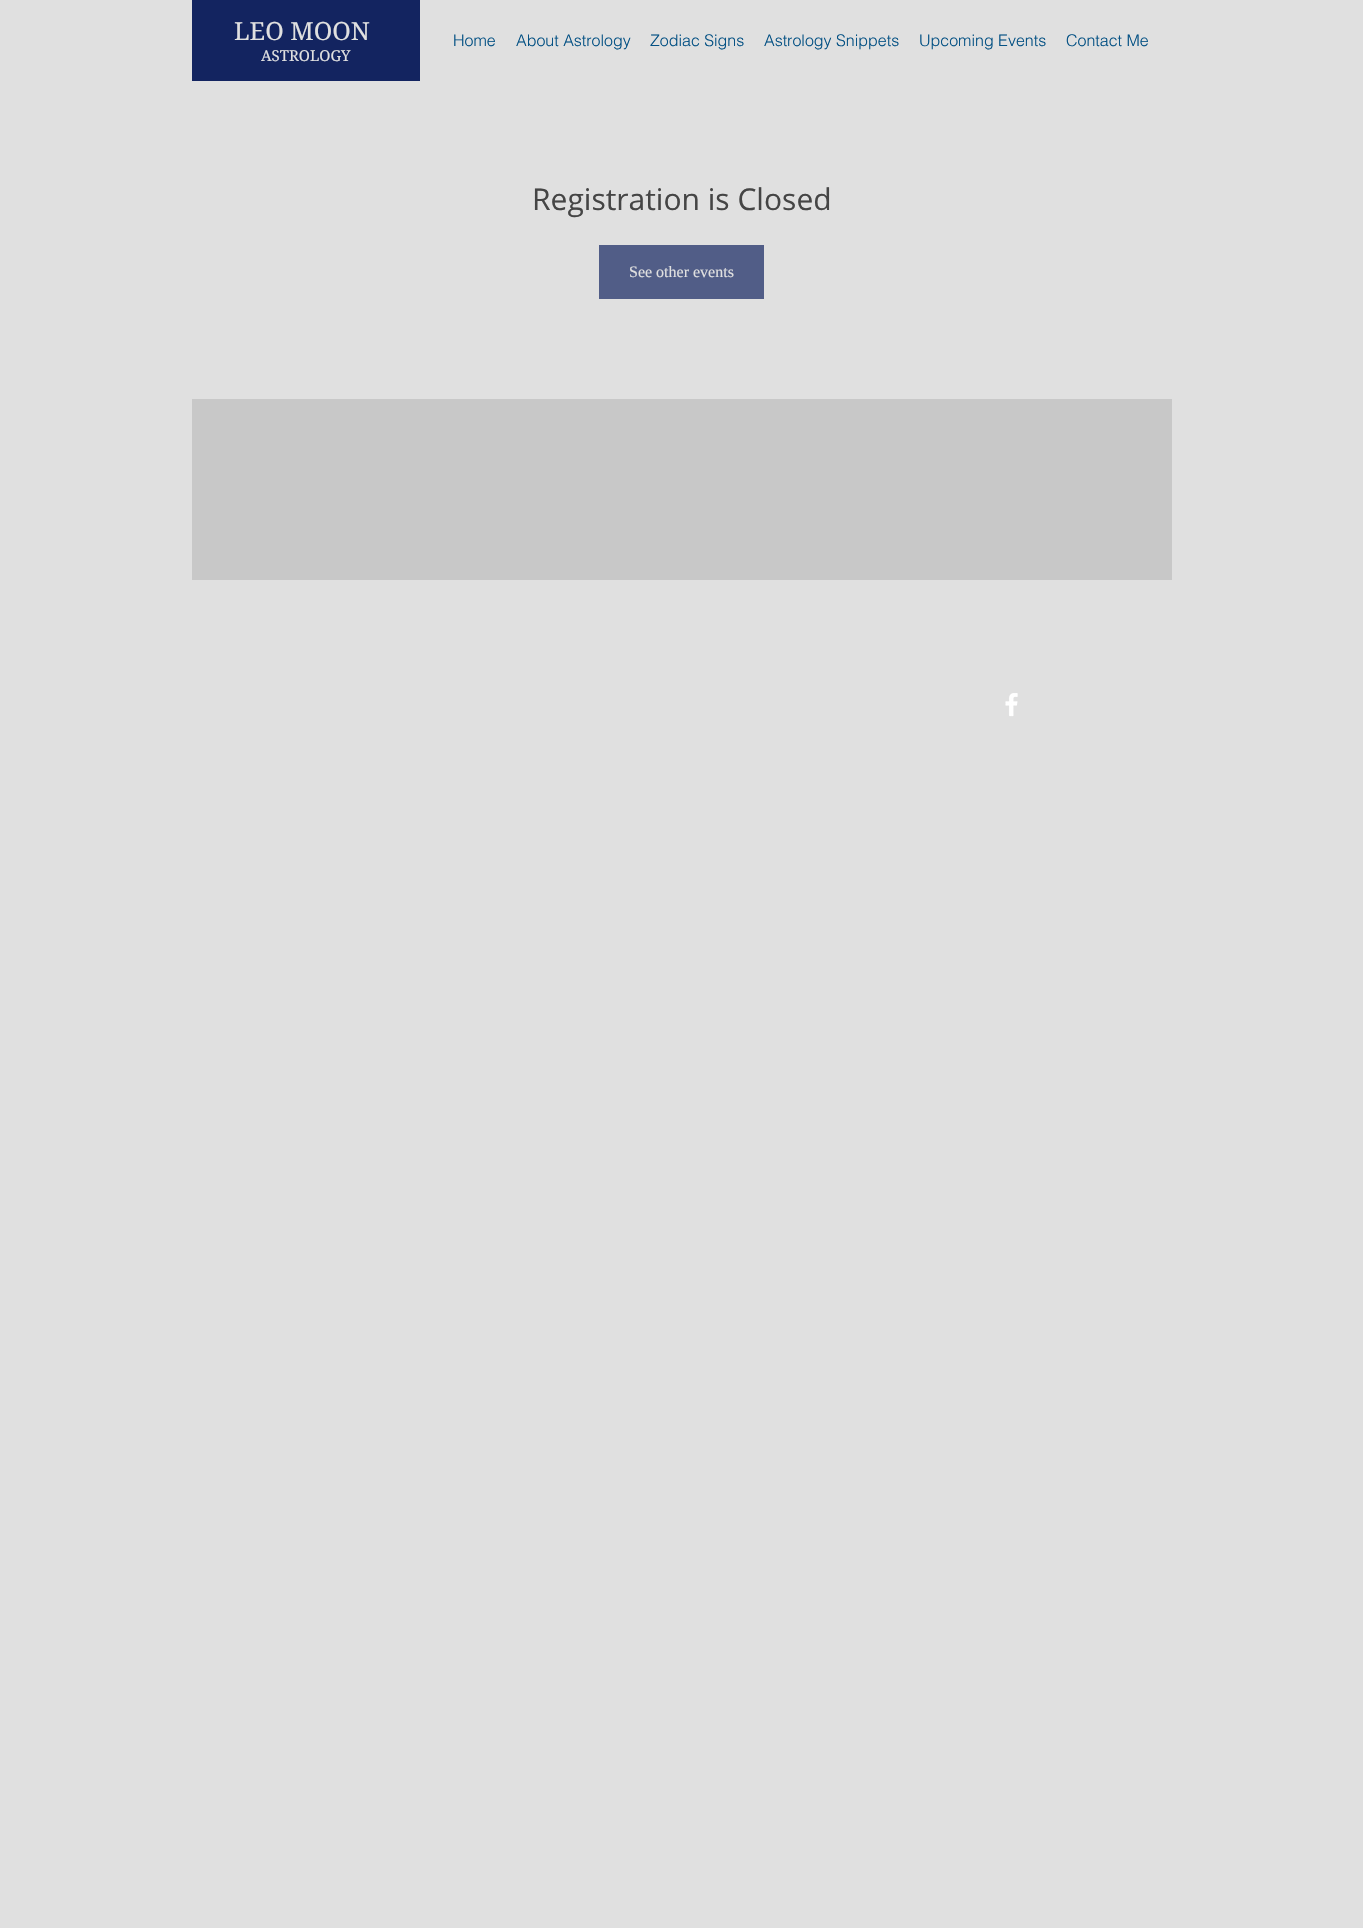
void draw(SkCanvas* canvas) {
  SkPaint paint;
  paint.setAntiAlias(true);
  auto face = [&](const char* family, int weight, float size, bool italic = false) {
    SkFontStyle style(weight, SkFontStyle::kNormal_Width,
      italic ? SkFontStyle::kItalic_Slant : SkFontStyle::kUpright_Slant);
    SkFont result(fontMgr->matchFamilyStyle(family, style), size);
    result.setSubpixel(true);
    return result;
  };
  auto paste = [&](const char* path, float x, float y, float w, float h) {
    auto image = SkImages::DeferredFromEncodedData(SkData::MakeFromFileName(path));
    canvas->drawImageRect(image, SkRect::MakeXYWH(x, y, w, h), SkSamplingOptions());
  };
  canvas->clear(0xffe0e0e0);
  {
    const struct { float x, y, w, h; SkColor color; } items[] = {
      {192, 0, 228, 81, 0xff132460},
      {599, 245, 165, 54, 0xff515d87},
      {192, 399, 980, 181, 0xffc8c8c8},
    };
    for (auto [x, y, w, h, color] : items) {
      paint.setColor(color);
      canvas->drawRect(SkRect::MakeXYWH(x, y, w, h), paint);
    }
  }
  paste("img/1.png", 1005, 693, 13, 24);
  auto f0 = face("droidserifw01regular", 400, 25);
  paint.setColor(0xffe0e0e0);
  canvas->drawString("LEO MOON", 234, 40, f0, paint);
  auto f1 = face("droidserifw01regular", 400, 15);
  canvas->drawString("ASTROLOGY", 261, 61, f1, paint);
  auto f2 = face("helvetica", 300, 16);
  paint.setColor(0xff045184);
  {
    const struct { const char* s; float x, y; } items[] = {
      {"Home", 453, 46},
      {"About Astrology", 516, 46},
      {"Zodiac Signs", 650, 46},
      {"Astrology Snippets", 764, 46},
      {"Upcoming Events", 919, 46},
      {"Contact Me", 1066, 46},
    };
    for (auto [s, x, y] : items) {
      canvas->drawString(s, x, y, f2, paint);
    }
  }
  auto f3 = face("Open Sans", 400, 30);
  paint.setColor(0xff454545);
  canvas->drawString("Registration is Closed", 532, 210, f3, paint);
  auto f4 = face("Liberation Serif", 400, 16);
  paint.setColor(0xffe0e0e0);
  canvas->drawString("See other events", 629, 277, f4, paint);
}
